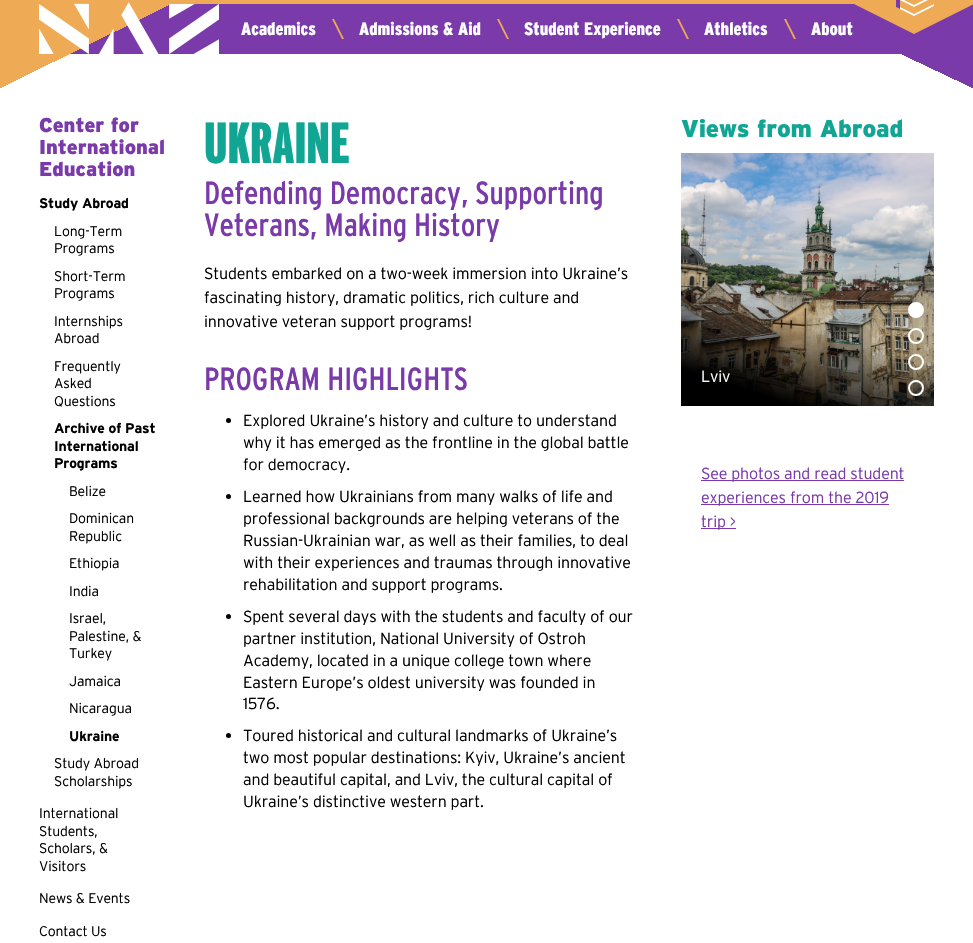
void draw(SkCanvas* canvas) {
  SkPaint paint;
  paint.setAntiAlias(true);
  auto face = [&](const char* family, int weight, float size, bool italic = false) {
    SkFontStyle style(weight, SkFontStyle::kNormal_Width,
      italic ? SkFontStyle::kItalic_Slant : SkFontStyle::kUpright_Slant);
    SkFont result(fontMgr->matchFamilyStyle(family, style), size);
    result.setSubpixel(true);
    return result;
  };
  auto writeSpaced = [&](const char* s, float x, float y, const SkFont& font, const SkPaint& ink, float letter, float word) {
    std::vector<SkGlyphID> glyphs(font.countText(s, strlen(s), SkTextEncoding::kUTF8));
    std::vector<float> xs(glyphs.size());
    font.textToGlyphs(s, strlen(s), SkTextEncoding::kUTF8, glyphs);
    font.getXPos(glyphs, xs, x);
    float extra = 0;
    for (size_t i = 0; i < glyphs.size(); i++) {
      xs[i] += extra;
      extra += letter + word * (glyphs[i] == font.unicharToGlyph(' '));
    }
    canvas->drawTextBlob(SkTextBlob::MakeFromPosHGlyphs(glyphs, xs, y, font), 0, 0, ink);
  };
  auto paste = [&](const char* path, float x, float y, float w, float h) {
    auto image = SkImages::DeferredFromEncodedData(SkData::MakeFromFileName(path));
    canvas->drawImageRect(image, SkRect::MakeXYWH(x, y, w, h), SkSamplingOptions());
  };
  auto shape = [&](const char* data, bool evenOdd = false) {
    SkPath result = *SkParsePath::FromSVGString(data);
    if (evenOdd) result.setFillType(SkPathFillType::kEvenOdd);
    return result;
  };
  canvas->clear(0xffffffff);
  paint.setColor(0xff7a3aaa);
  canvas->drawRect(SkRect::MakeXYWH(71, 4, 902, 50), paint);
  {
    const SkColor colors[] = {0xffeeaa55, 0xffeeaa55, 0x00eeaa55, 0x00000000};
    const float stops[] = {0, 0.5f, 0.5f, 1};
    const SkPoint ends[] = {{70, -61}, {161, 124}};
    paint.setShader(SkGradientShader::MakeLinear(ends, colors, stops, 4, SkTileMode::kClamp));
    paint.setAlpha(255);
  }
  canvas->drawRect(SkRect::MakeXYWH(0, 0, 170, 88), paint);
  paint.setShader(nullptr);
  paint.setColor(0xffeeaa55);
  canvas->drawPath(shape("M794-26H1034L914 34Z"), paint);
  canvas->drawRect(SkRect::MakeXYWH(170, 0, 684, 4), paint);
  paste("img/1.png", 39, 2, 180, 52);
  paste("img/2.png", 896, 0, 4, 9);
  paint.setColor(0xffffffff);
  canvas->drawPath(shape("M914 16L900 9V7L914 14ZM900-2L914 5V7L900 0ZM914 14L934 4V6L914 16Z"), paint);
  canvas->drawPath(shape("M914 5L934-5V-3L914 7Z"), paint);
  paint.setColor(0xffeeaa55);
  canvas->drawPath(shape("M332 19H334L344 39H342Z"), paint);
  canvas->drawPath(shape("M497 19H499L509 39H507Z"), paint);
  canvas->drawPath(shape("M677 19H679L689 39H687Z"), paint);
  canvas->drawPath(shape("M784 19H786L796 39H794Z"), paint);
  {
    const SkColor colors[] = {0xff7a3aaa, 0xff7a3aaa, 0xffffffff, 0xffffffff};
    const float stops[] = {0, 0.5f, 0.5f, 1};
    const SkPoint ends[] = {{951, 43}, {924, 100}};
    paint.setShader(SkGradientShader::MakeLinear(ends, colors, stops, 4, SkTileMode::kClamp));
    paint.setAlpha(255);
  }
  canvas->drawRect(SkRect::MakeXYWH(902, 54, 71, 34), paint);
  paint.setShader(nullptr);
  paint.setColor(0xff000000);
  canvas->drawCircle(228.5f, 420.5f, 2.5f, paint);
  canvas->drawCircle(228.5f, 496.5f, 2.5f, paint);
  canvas->drawCircle(228.5f, 616.5f, 2.5f, paint);
  canvas->drawCircle(228.5f, 735.5f, 2.5f, paint);
  paste("img/3.png", 681, 153, 253, 253);
  paint.setColor(0xffffffff);
  canvas->drawCircle(916, 310, 7, paint);
  paint.setStroke(true);
  paint.setStrokeWidth(2);
  canvas->drawCircle(916, 310, 7, paint);
  canvas->drawCircle(916, 336, 7, paint);
  canvas->drawCircle(916, 362, 7, paint);
  canvas->drawCircle(916, 388, 7, paint);
  paint.setStroke(false);
  {
    const struct { float x, y, w, h; SkColor color; } items[] = {
      {701, 480, 203, 1, 0xff7a3aaa},
      {701, 504, 188, 1, 0xff7a3aaa},
      {701, 528, 35, 1, 0xff7a3aaa},
    };
    for (auto [x, y, w, h, color] : items) {
      paint.setColor(color);
      canvas->drawRect(SkRect::MakeXYWH(x, y, w, h), paint);
    }
  }
  auto f0 = face("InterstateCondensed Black", 900, 18);
  paint.setColor(0xffffffff);
  {
    const struct { const char* s; float x, y; } items[] = {
      {"Academics", 241, 35},
      {"Admissions & Aid", 359, 35},
      {"Student Experience", 524, 35},
      {"Athletics", 704, 35},
      {"About", 811, 35},
    };
    for (auto [s, x, y] : items) {
      canvas->drawString(s, x, y, f0, paint);
    }
  }
  auto f1 = face("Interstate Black", 900, 20);
  paint.setColor(0xff7a3aaa);
  {
    const struct { const char* s; float x, y; } items[] = {
      {"Center for", 39, 132},
      {"International", 39, 154},
      {"Education", 39, 176},
    };
    for (auto [s, x, y] : items) {
      canvas->drawString(s, x, y, f1, paint);
    }
  }
  auto f2 = face("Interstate", 700, 14);
  paint.setColor(0xff000000);
  writeSpaced("Study Abroad", 39, 208, f2, paint, -0.15f, 0);
  auto f3 = face("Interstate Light", 300, 14);
  {
    const struct { const char* s; float x, y; } items[] = {
      {"Long-Term", 54, 236},
      {"Programs", 54, 253},
      {"Short-Term", 54, 281},
      {"Programs", 54, 298},
      {"Internships", 54, 326},
      {"Abroad", 54, 343},
      {"Frequently", 54, 371},
      {"Asked", 54, 388},
      {"Questions", 54, 406},
    };
    for (auto [s, x, y] : items) {
      writeSpaced(s, x, y, f3, paint, -0.15f, 0);
    }
  }
  {
    const struct { const char* s; float x, y; } items[] = {
      {"Archive of Past", 54, 433},
      {"International", 54, 451},
      {"Programs", 54, 468},
    };
    for (auto [s, x, y] : items) {
      writeSpaced(s, x, y, f2, paint, -0.15f, 0);
    }
  }
  {
    const struct { const char* s; float x, y; } items[] = {
      {"Belize", 69, 496},
      {"Dominican", 69, 523},
      {"Republic", 69, 541},
      {"Ethiopia", 69, 568},
      {"India", 69, 596},
      {"Israel,", 69, 623},
      {"Palestine, &", 69, 641},
      {"Turkey", 69, 658},
      {"Jamaica", 69, 686},
      {"Nicaragua", 69, 713},
    };
    for (auto [s, x, y] : items) {
      writeSpaced(s, x, y, f3, paint, -0.15f, 0);
    }
  }
  writeSpaced("Ukraine", 69, 741, f2, paint, -0.15f, 0);
  {
    const struct { const char* s; float x, y; } items[] = {
      {"Study Abroad", 54, 768},
      {"Scholarships", 54, 786},
      {"International", 39, 818},
      {"Students,", 39, 836},
      {"Scholars, &", 39, 853},
      {"Visitors", 39, 871},
      {"News & Events", 39, 903},
      {"Contact Us", 39, 936},
    };
    for (auto [s, x, y] : items) {
      writeSpaced(s, x, y, f3, paint, -0.15f, 0);
    }
  }
  auto f4 = face("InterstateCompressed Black", 900, 58);
  paint.setColor(0xff11a694);
  canvas->drawString("UKRAINE", 204, 163, f4, paint);
  auto f5 = face("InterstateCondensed", 400, 32);
  paint.setColor(0xff7a3aaa);
  canvas->drawString("Defending Democracy, Supporting", 204, 204, f5, paint);
  canvas->drawString("Veterans, Making History", 204, 236, f5, paint);
  auto f6 = face("Interstate Light", 300, 16);
  paint.setColor(0xff000000);
  {
    const struct { const char* s; float x, y; } items[] = {
      {"Students embarked on a two-week immersion into Ukraine’s", 204, 279},
      {"fascinating history, dramatic politics, rich culture and", 204, 303},
      {"innovative veteran support programs!", 204, 327},
    };
    for (auto [s, x, y] : items) {
      writeSpaced(s, x, y, f6, paint, -0.15f, 0);
    }
  }
  paint.setColor(0xff7a3aaa);
  canvas->drawString("PROGRAM HIGHLIGHTS", 204, 390, f5, paint);
  paint.setColor(0xff000000);
  {
    const struct { const char* s; float x, y; } items[] = {
      {"Explored Ukraine’s history and culture to understand", 243, 426},
      {"why it has emerged as the frontline in the global battle", 243, 448},
      {"for democracy.", 243, 470},
      {"Learned how Ukrainians from many walks of life and", 243, 502},
      {"professional backgrounds are helping veterans of the", 243, 524},
      {"Russian-Ukrainian war, as well as their families, to deal", 243, 546},
      {"with their experiences and traumas through innovative", 243, 568},
      {"rehabilitation and support programs.", 243, 590},
      {"Spent several days with the students and faculty of our", 243, 622},
      {"partner institution, National University of Ostroh", 243, 644},
      {"Academy, located in a unique college town where", 243, 666},
      {"Eastern Europe’s oldest university was founded in", 243, 688},
      {"1576.", 243, 709},
      {"Toured historical and cultural landmarks of Ukraine’s", 243, 741},
      {"two most popular destinations: Kyiv, Ukraine’s ancient", 243, 763},
      {"and beautiful capital, and Lviv, the cultural capital of", 243, 785},
      {"Ukraine’s distinctive western part.", 243, 807},
    };
    for (auto [s, x, y] : items) {
      writeSpaced(s, x, y, f6, paint, -0.15f, 0);
    }
  }
  auto f7 = face("Interstate Black", 900, 24.25f);
  paint.setColor(0xff11a694);
  writeSpaced("Views from Abroad", 681, 137, f7, paint, -0.15f, 0);
  paint.setColor(0xffffffff);
  writeSpaced("Lviv", 701, 382, f6, paint, -0.15f, 0);
  paint.setColor(0xff7a3aaa);
  {
    const struct { const char* s; float x, y; } items[] = {
      {"See photos and read student", 701, 479},
      {"experiences from the 2019", 701, 503},
      {"trip >", 701, 527},
    };
    for (auto [s, x, y] : items) {
      writeSpaced(s, x, y, f6, paint, -0.15f, 0);
    }
  }
}
